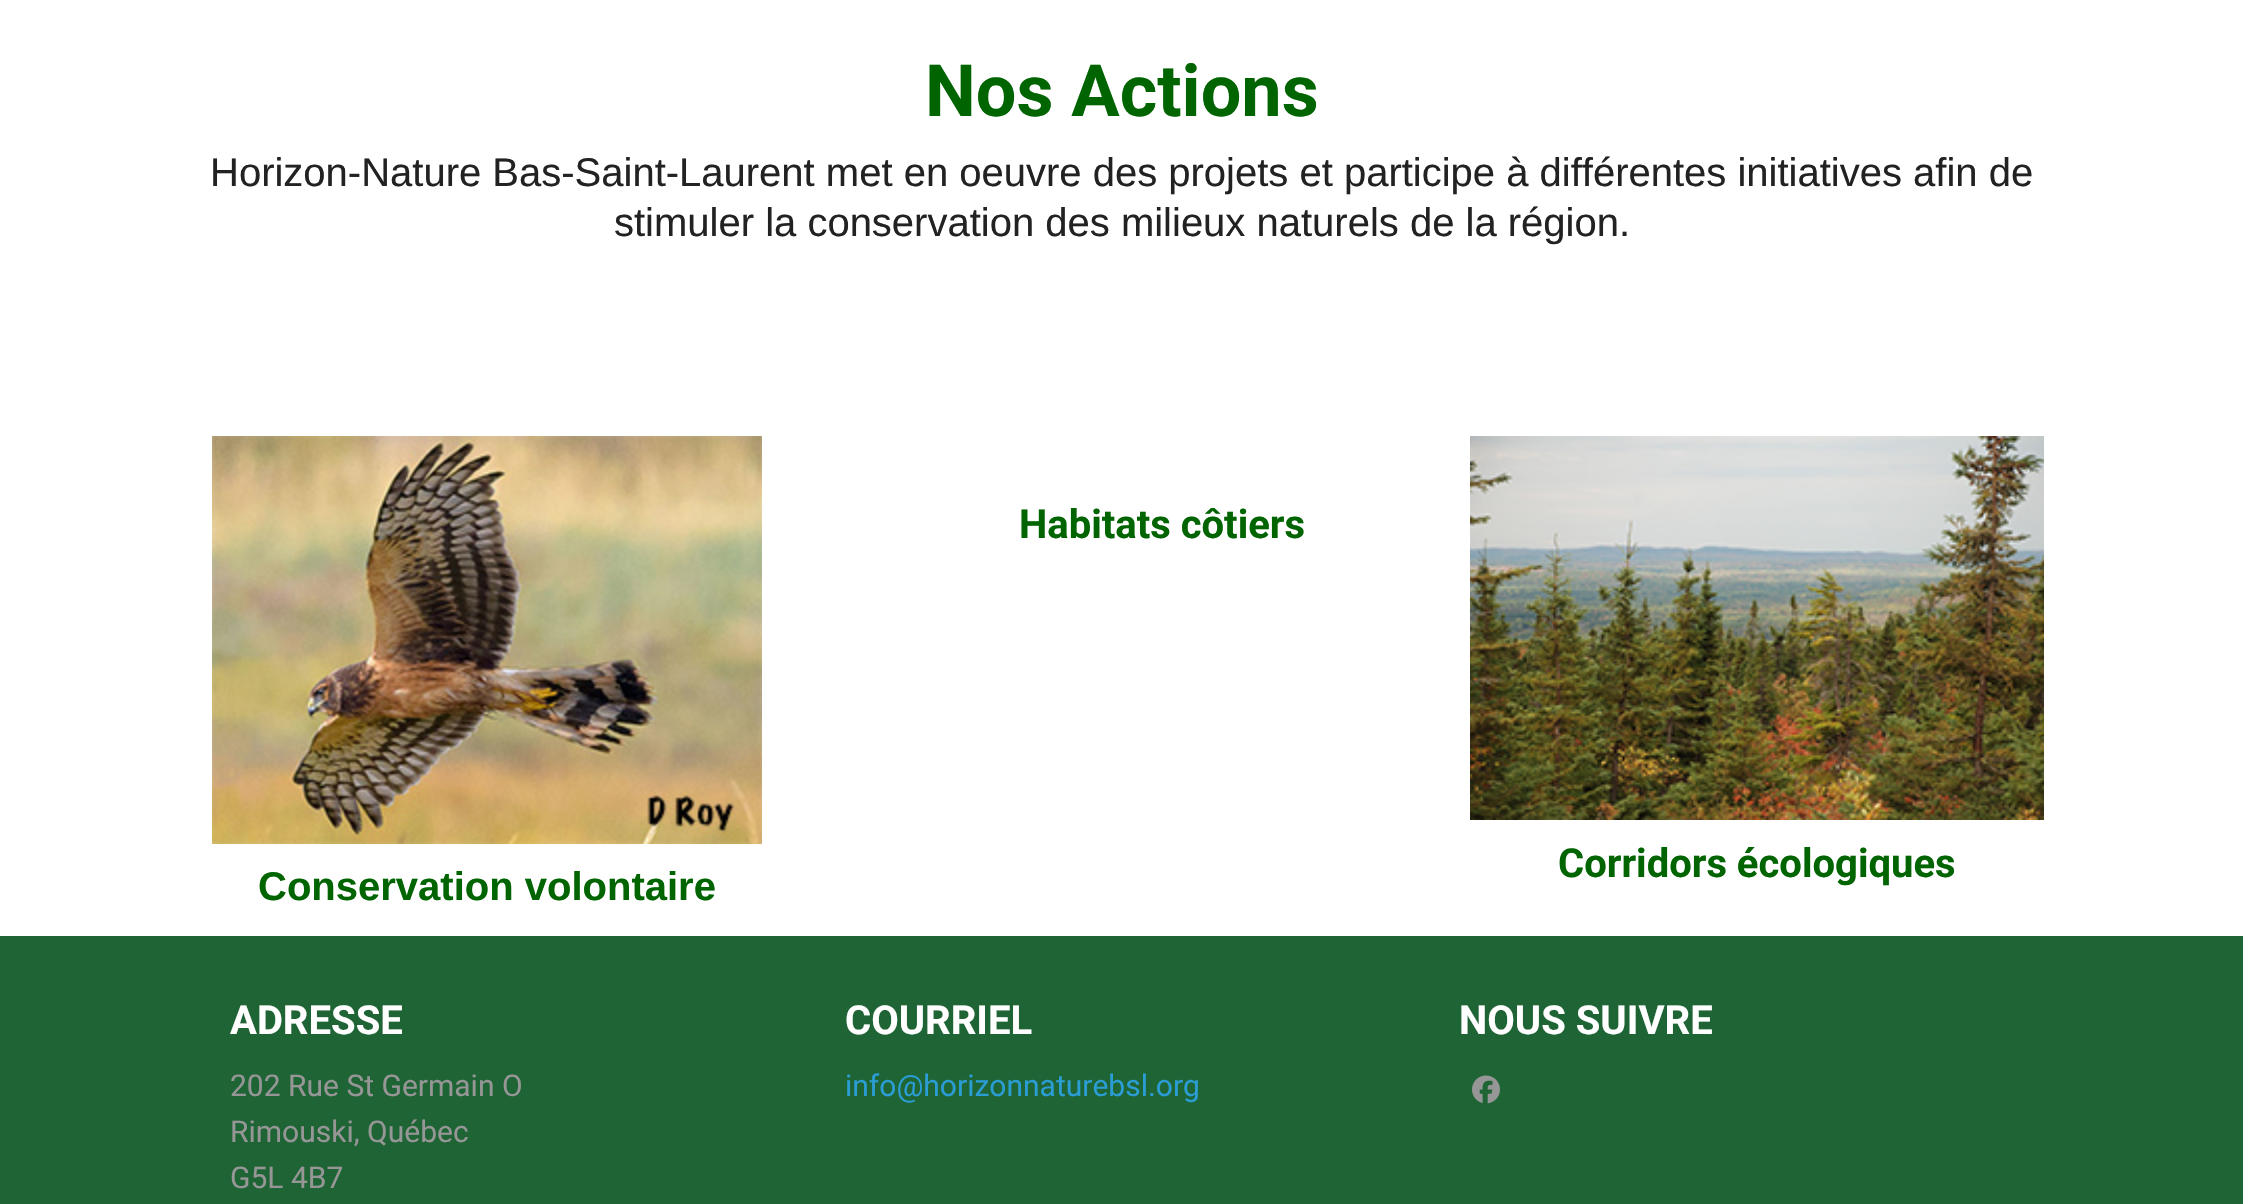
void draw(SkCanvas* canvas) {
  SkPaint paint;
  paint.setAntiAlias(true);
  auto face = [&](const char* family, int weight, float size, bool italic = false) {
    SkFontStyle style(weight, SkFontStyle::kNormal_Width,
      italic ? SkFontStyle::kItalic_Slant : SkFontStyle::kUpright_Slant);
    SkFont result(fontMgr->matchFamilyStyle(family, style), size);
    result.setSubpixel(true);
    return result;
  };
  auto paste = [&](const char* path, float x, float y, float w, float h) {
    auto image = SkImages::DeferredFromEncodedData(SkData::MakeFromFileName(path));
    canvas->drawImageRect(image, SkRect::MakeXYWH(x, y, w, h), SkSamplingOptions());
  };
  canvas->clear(0xffffffff);
  paste("img/1.png", 212, 436, 550, 408);
  paste("img/2.png", 1470, 436, 574, 384);
  paint.setColor(0xff1e6435);
  canvas->drawRect(SkRect::MakeXYWH(0, 936, 2243, 268), paint);
  paste("img/3.png", 1472, 1075, 28, 29);
  auto f0 = face("Roboto", 700, 72);
  paint.setColor(0xff006400);
  canvas->drawString("Nos Actions", 925, 116, f0, paint);
  auto f1 = face("Liberation Sans", 400, 40);
  paint.setColor(0xff222222);
  canvas->drawString("Horizon-Nature Bas-Saint-Laurent met en oeuvre des projets et participe à différentes initiatives afin de", 210, 186, f1, paint);
  canvas->drawString("stimuler la conservation des milieux naturels de la région.", 614, 236, f1, paint);
  auto f2 = face("Roboto", 700, 40);
  paint.setColor(0xff006400);
  canvas->drawString("Habitats côtiers", 1019, 538, f2, paint);
  auto f3 = face("Liberation Sans", 700, 40);
  canvas->drawString("Conservation volontaire", 258, 900, f3, paint);
  canvas->drawString("Corridors écologiques", 1558, 877, f2, paint);
  paint.setColor(0xffffffff);
  canvas->drawString("ADRESSE", 230, 1034, f2, paint);
  auto f4 = face("Roboto", 400, 30);
  paint.setColor(0xff969696);
  {
    const struct { const char* s; float x, y; } items[] = {
      {"202 Rue St Germain O", 230, 1096},
      {"Rimouski, Québec", 230, 1142},
      {"G5L 4B7", 230, 1188},
    };
    for (auto [s, x, y] : items) {
      canvas->drawString(s, x, y, f4, paint);
    }
  }
  paint.setColor(0xffffffff);
  canvas->drawString("COURRIEL", 845, 1034, f2, paint);
  paint.setColor(0xff2b9dd5);
  canvas->drawString("info@horizonnaturebsl.org", 845, 1096, f4, paint);
  paint.setColor(0xffffffff);
  canvas->drawString("NOUS SUIVRE", 1459, 1034, f2, paint);
}
